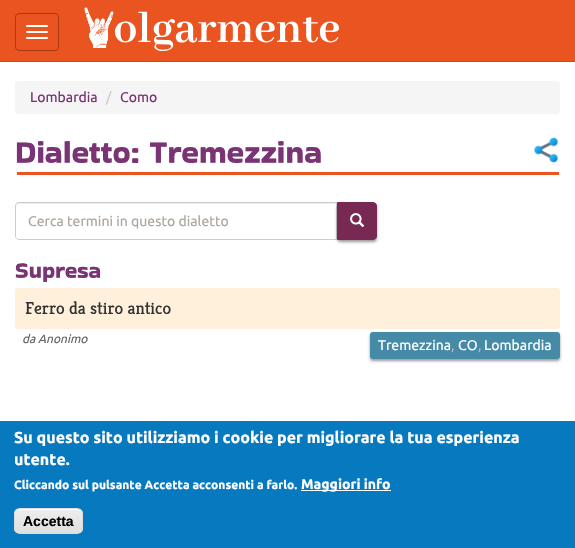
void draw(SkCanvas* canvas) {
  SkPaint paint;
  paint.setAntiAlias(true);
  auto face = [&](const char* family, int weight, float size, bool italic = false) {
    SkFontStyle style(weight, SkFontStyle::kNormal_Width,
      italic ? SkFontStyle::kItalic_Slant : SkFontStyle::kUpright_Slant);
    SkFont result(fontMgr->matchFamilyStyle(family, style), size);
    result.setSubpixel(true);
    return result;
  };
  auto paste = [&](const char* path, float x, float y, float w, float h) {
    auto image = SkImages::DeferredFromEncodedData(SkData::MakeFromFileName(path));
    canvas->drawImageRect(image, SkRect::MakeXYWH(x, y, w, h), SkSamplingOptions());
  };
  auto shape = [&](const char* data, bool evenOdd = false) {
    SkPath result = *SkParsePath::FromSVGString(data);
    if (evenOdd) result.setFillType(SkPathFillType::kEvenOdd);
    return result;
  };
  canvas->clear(0xffffffff);
  paint.setColor(0xffe95420);
  canvas->drawRect(SkRect::MakeXYWH(0, 0, 575, 61), paint);
  paint.setColor(0xffd34615);
  canvas->drawRect(SkRect::MakeXYWH(0, 61, 575, 1), paint);
  paint.setStroke(true);
  paint.setStrokeWidth(1);
  paint.setColor(0xffac3911);
  canvas->drawRoundRect(SkRect::MakeXYWH(15.5f, 13.5f, 43, 37), 3.5f, 3.5f, paint);
  paint.setStroke(false);
  paint.setColor(0xffffffff);
  canvas->drawRoundRect(SkRect::MakeXYWH(26, 25, 22, 2), 1, 1, paint);
  canvas->drawRoundRect(SkRect::MakeXYWH(26, 31, 22, 2), 1, 1, paint);
  canvas->drawRoundRect(SkRect::MakeXYWH(26, 37, 22, 2), 1, 1, paint);
  paste("img/1.png", 84, 7, 255, 44);
  paint.setColor(0xfff5f5f5);
  canvas->drawRoundRect(SkRect::MakeXYWH(15, 81, 545, 33), 4, 4, paint);
  paint.setColor(0xffe95420);
  canvas->drawRect(SkRect::MakeXYWH(17, 172, 542, 3), paint);
  paste("img/2.png", 533, 137, 26, 26);
  paint.setColor(0xffececec);
  canvas->drawPath(shape("M19 204H336V203H19C17 203 16 205 16 207C16 205 17 204 19 204Z"), paint);
  paint.setStroke(true);
  paint.setColor(0xffcccccc);
  canvas->drawPath(shape("M19 202.5H336.5V239.5H19C17 239.5 15.5 238 15.5 236V206C15.5 204 17 202.5 19 202.5Z"), paint);
  paint.setStroke(false);
  paint.setColor(0xab666666);
  paint.setMaskFilter(SkMaskFilter::MakeBlur(kNormal_SkBlurStyle, 1.5f));
  canvas->drawRoundRect(SkRect::MakeXYWH(337, 204, 40, 38), 4, 4, paint);
  paint.setMaskFilter(nullptr);
  paint.setColor(0xff772953);
  canvas->drawPath(shape("M337.5 202.5H373C375 202.5 376.5 204 376.5 206V236C376.5 238 375 239.5 373 239.5H337.5Z"), paint);
  paint.setStroke(true);
  canvas->drawPath(shape("M337.5 202.5H373C375 202.5 376.5 204 376.5 206V236C376.5 238 375 239.5 373 239.5H337.5Z"), paint);
  paste("img/3.png", 350, 213, 15, 14);
  paint.setStroke(false);
  paint.setColor(0xfffef0da);
  canvas->drawRoundRect(SkRect::MakeXYWH(15, 288, 545, 41), 3, 3, paint);
  paint.setColor(0xab666666);
  paint.setMaskFilter(SkMaskFilter::MakeBlur(kNormal_SkBlurStyle, 1.5f));
  canvas->drawRoundRect(SkRect::MakeXYWH(370, 334, 190, 27), 3, 3, paint);
  paint.setMaskFilter(nullptr);
  paint.setColor(0xff458aa7);
  canvas->drawRoundRect(SkRect::MakeXYWH(370, 332, 190, 27), 3, 3, paint);
  paint.setColor(0xff0779bf);
  canvas->drawRect(SkRect::MakeXYWH(0, 421, 575, 127), paint);
  paint.setColor(0xffffffff);
  canvas->drawRect(SkRect::MakeXYWH(301, 490, 90, 1), paint);
  canvas->save();
  canvas->clipPath(shape("M20 508H77C80.5 508 83 510.5 83 514V528C83 531.5 80.5 534 77 534H20C16.5 534 14 531.5 14 528V514C14 510.5 16.5 508 20 508Z"), true);
  {
    const SkColor colors[] = {0xffededed, 0xffdfdfdf};
    const float stops[] = {0.05f, 1};
    const SkPoint ends[] = {{49, 509}, {49, 533}};
    paint.setShader(SkGradientShader::MakeLinear(ends, colors, stops, 2, SkTileMode::kClamp));
    paint.setAlpha(255);
  }
  canvas->drawRect(SkRect::MakeXYWH(14, 509, 69, 24), paint);
  canvas->restore();
  paint.setShader(nullptr);
  paint.setColor(0xffffffff);
  canvas->drawPath(shape("M20 510H77C80 510 82 512 82 515C82 507 73 509 68 509H30C24 509 15 507 15 515C15 512 17 510 20 510Z"), paint);
  paint.setStroke(true);
  paint.setColor(0xffdcdcdc);
  canvas->drawRoundRect(SkRect::MakeXYWH(14.5f, 508.5f, 68, 25), 5.5f, 5.5f, paint);
  auto f0 = face("Ubuntu", 400, 14);
  paint.setStroke(false);
  paint.setColor(0xff7a3476);
  canvas->drawString("Lombardia", 30, 102, f0, paint);
  paint.setColor(0xffcccccc);
  canvas->drawString("/", 106, 102, f0, paint);
  paint.setColor(0xff7a3476);
  canvas->drawString("Como", 120, 102, f0, paint);
  auto f1 = face("Bakbak One", 400, 32);
  canvas->drawString("Dialetto: Tremezzina", 15, 163, f1, paint);
  paint.setColor(0xffaea79f);
  canvas->drawString("Cerca termini in questo dialetto", 28, 226, f0, paint);
  auto f2 = face("Bakbak One", 400, 22.5f);
  paint.setColor(0xff7a3476);
  canvas->drawString("Supresa", 15, 278, f2, paint);
  auto f3 = face("Kreon", 400, 17.5f);
  paint.setColor(0xff333333);
  canvas->drawString("Ferro da stiro antico", 25, 314, f3, paint);
  auto f4 = face("Ubuntu", 400, 12, true);
  paint.setColor(0xff666666);
  canvas->drawString("da Anonimo", 22, 343, f4, paint);
  paint.setColor(0xffffffff);
  canvas->drawString("Tremezzina", 378, 350, f0, paint);
  paint.setColor(0xffbbbbbb);
  canvas->drawString(",", 451, 350, f0, paint);
  paint.setColor(0xffffffff);
  canvas->drawString("CO", 458, 350, f0, paint);
  paint.setColor(0xffbbbbbb);
  canvas->drawString(",", 478, 350, f0, paint);
  paint.setColor(0xffffffff);
  canvas->drawString("Lombardia", 484, 350, f0, paint);
  auto f5 = face("Ubuntu", 700, 16);
  canvas->drawString("Su questo sito utilizziamo i cookie per migliorare la tua esperienza", 14, 443, f5, paint);
  canvas->drawString("utente.", 14, 465, f5, paint);
  auto f6 = face("Ubuntu", 700, 12);
  canvas->drawString("Cliccando sul pulsante Accetta acconsenti a farlo.", 14, 489, f6, paint);
  auto f7 = face("Ubuntu", 700, 14);
  canvas->drawString("Maggiori info", 301, 489, f7, paint);
  auto f8 = face("Liberation Sans", 700, 14);
  paint.setColor(0xff000000);
  canvas->drawString("Accetta", 23, 526, f8, paint);
}
